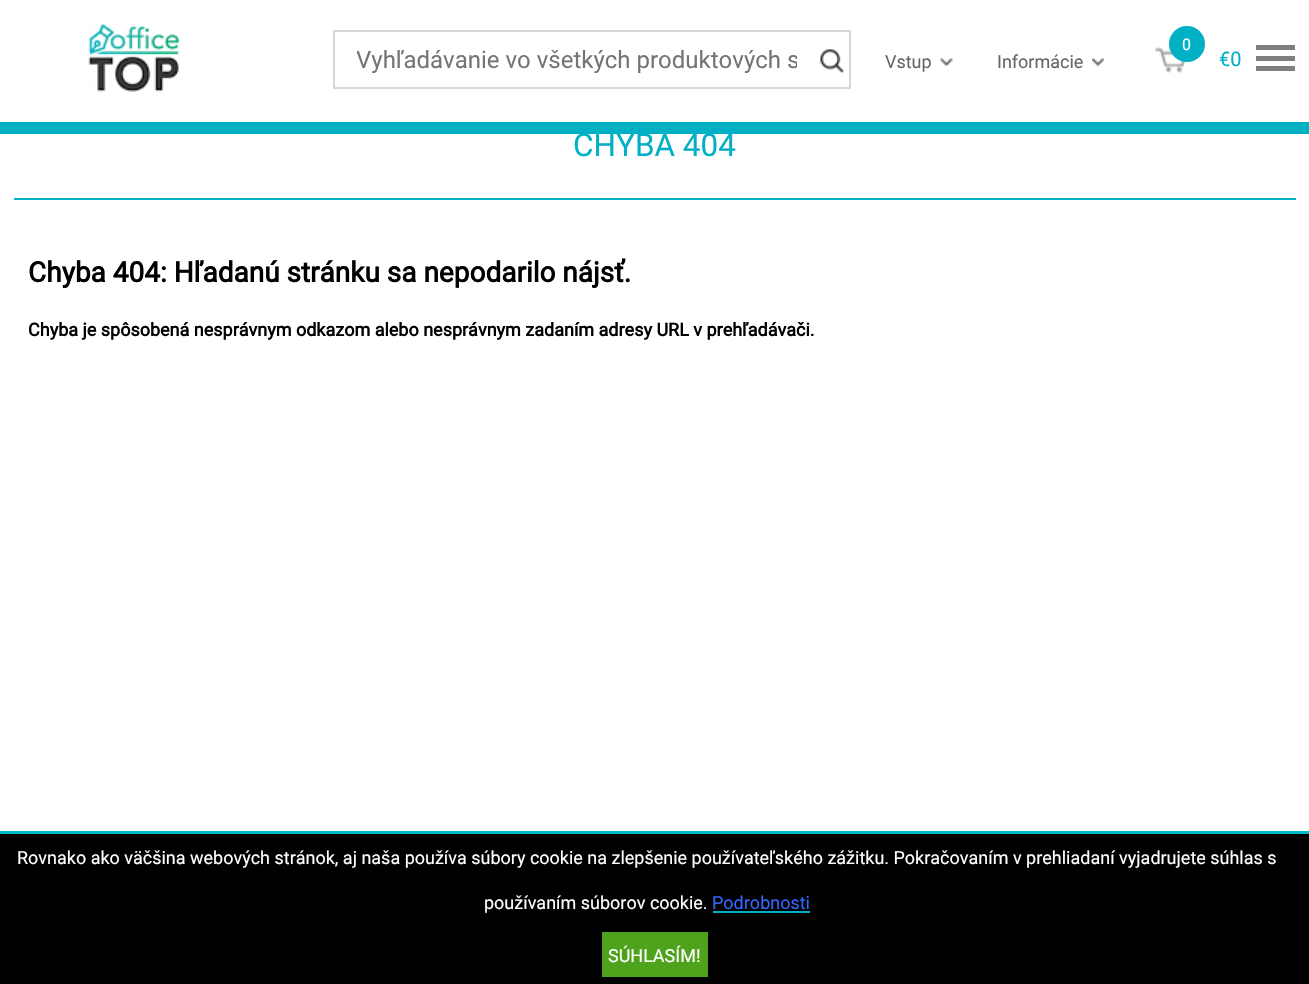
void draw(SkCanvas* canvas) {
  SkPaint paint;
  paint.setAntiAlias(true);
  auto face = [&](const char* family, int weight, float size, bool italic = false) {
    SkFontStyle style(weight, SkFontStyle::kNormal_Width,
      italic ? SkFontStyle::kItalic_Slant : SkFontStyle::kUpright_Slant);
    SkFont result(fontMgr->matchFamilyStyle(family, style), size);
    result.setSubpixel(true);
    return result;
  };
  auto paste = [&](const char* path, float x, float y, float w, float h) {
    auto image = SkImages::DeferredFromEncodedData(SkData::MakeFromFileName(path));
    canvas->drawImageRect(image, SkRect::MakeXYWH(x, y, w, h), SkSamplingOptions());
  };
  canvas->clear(0xffffffff);
  paint.setColor(0xff01b0c5);
  canvas->drawRect(SkRect::MakeXYWH(0, 122, 1309, 12), paint);
  paste("img/1.png", 88, 23, 93, 69);
  paint.setStroke(true);
  paint.setStrokeWidth(2);
  paint.setColor(0xffd7d7d7);
  canvas->drawRect(SkRect::MakeXYWH(334, 31, 516, 57), paint);
  paste("img/2.png", 820, 49, 24, 24);
  paste("img/3.png", 940, 58, 13, 9);
  paste("img/4.png", 1092, 58, 12, 9);
  paste("img/5.png", 1155, 47, 31, 26);
  paint.setStroke(false);
  paint.setColor(0xff01b0c5);
  canvas->drawCircle(1187, 44, 18, paint);
  {
    const struct { float x, y, w, h; SkColor color; } items[] = {
      {1256, 45, 39, 5, 0xff808080},
      {1256, 56, 39, 5, 0xff808080},
      {1256, 66, 39, 5, 0xff808080},
      {14, 198, 1282, 2, 0xff01b0c5},
      {0, 831, 1309, 3, 0xff01bacc},
      {0, 834, 1309, 150, 0xff000000},
      {713, 911, 97, 2, 0xff01b0c5},
      {602, 932, 106, 45, 0xff4fa31c},
    };
    for (auto [x, y, w, h, color] : items) {
      paint.setColor(color);
      canvas->drawRect(SkRect::MakeXYWH(x, y, w, h), paint);
    }
  }
  canvas->save();
  canvas->clipRect(SkRect::MakeXYWH(357, 42, 440, 33));
  auto f0 = face("Roboto", 400, 24);
  paint.setColor(0xff757575);
  canvas->drawString("Vyhľadávanie vo všetkých produktových s", 356, 68, f0, paint);
  canvas->restore();
  auto f1 = face("Roboto", 400, 18);
  paint.setColor(0xff666666);
  canvas->drawString("Vstup", 885, 68, f1, paint);
  canvas->drawString("Informácie", 997, 68, f1, paint);
  auto f2 = face("Roboto", 400, 16);
  paint.setColor(0xffffffff);
  canvas->drawString("0", 1182, 50, f2, paint);
  auto f3 = face("Roboto", 400, 20);
  paint.setColor(0xff01b0c5);
  canvas->drawString("€0", 1219, 66, f3, paint);
  auto f4 = face("Roboto", 400, 31.5f);
  canvas->drawString("CHYBA 404", 573, 156, f4, paint);
  auto f5 = face("Roboto", 700, 28);
  paint.setColor(0xff000000);
  canvas->drawString("Chyba 404: Hľadanú stránku sa nepodarilo nájsť.", 28, 282, f5, paint);
  auto f6 = face("Roboto", 700, 18);
  canvas->drawString("Chyba je spôsobená nesprávnym odkazom alebo nesprávnym zadaním adresy URL v prehľadávači.", 28, 336, f6, paint);
  paint.setColor(0xffffffff);
  canvas->drawString("Rovnako ako väčšina webových stránok, aj naša používa súbory cookie na zlepšenie používateľského zážitku. Pokračovaním v prehliadaní vyjadrujete súhlas s", 17, 864, f1, paint);
  canvas->drawString("používaním súborov cookie.", 484, 909, f1, paint);
  paint.setColor(0xff3366ff);
  canvas->drawString("Podrobnosti", 712, 909, f1, paint);
  paint.setColor(0xffffffff);
  canvas->drawString("SÚHLASÍM!", 608, 962, f1, paint);
}
